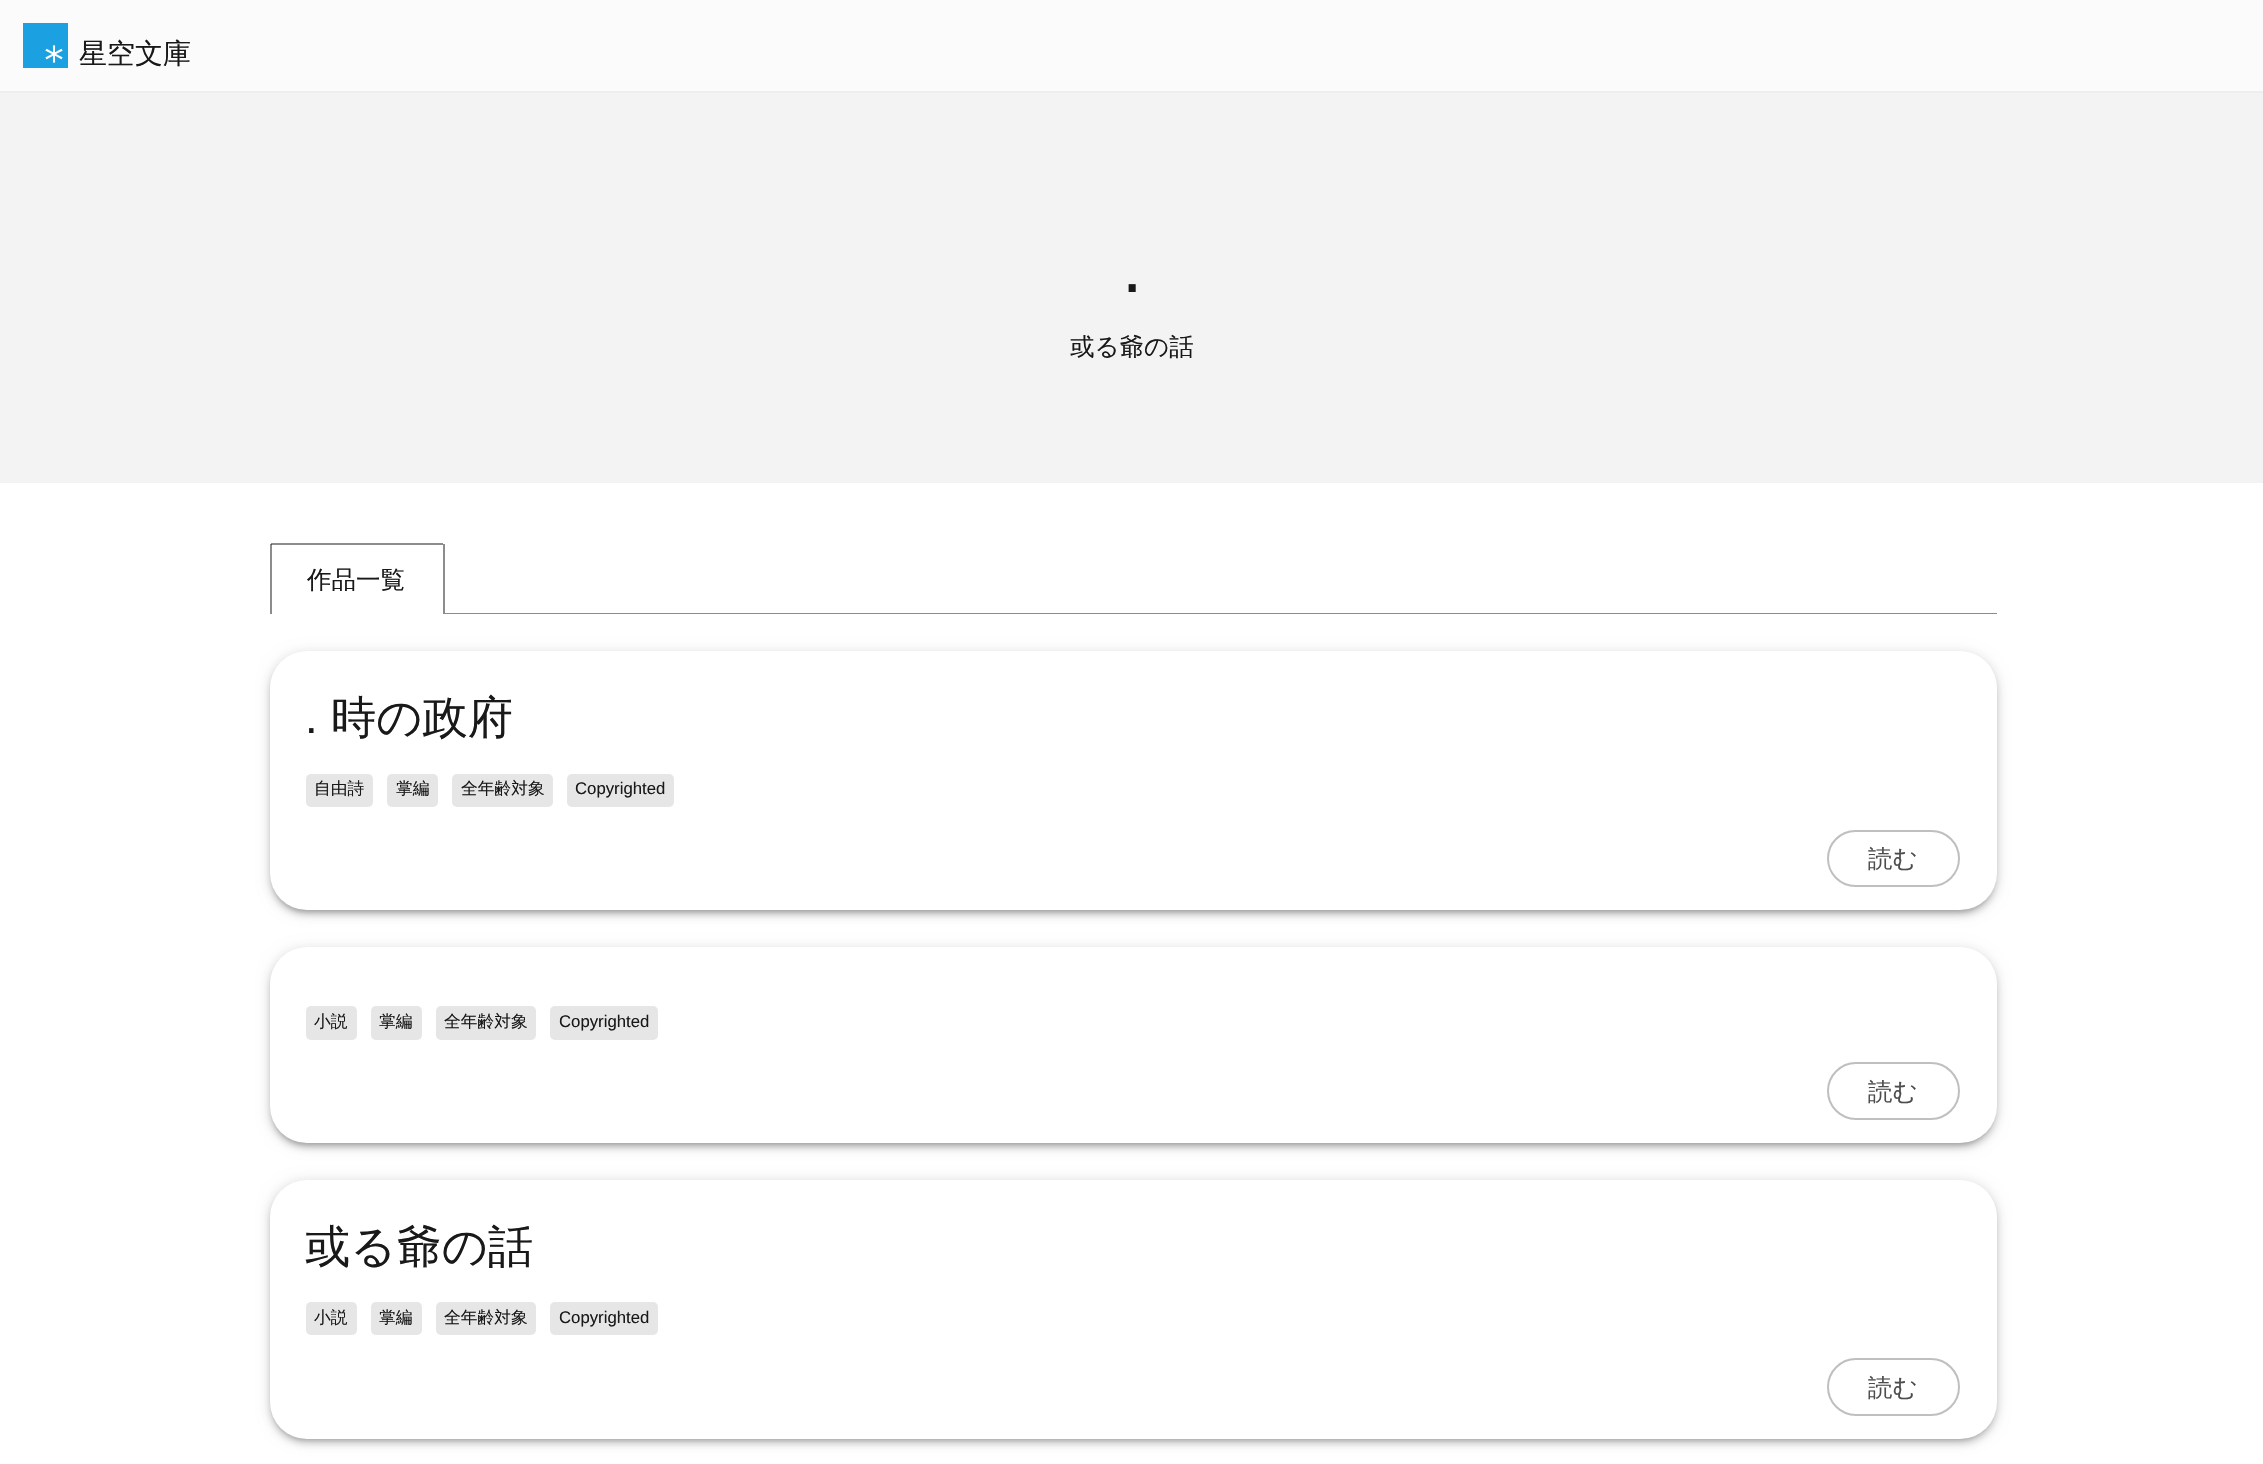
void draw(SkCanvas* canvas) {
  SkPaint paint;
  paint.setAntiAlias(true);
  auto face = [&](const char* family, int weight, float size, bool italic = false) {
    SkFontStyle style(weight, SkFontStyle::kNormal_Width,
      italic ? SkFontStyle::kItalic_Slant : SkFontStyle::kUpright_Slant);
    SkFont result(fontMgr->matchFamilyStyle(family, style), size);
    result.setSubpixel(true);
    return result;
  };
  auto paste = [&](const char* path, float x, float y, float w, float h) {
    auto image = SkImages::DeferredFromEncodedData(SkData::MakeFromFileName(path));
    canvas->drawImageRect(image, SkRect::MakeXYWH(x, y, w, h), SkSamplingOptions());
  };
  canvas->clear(0xffffffff);
  {
    const struct { float x, y, w, h; SkColor color; } items[] = {
      {270, 544, 2, 70, 0xff8c8c8c},
      {0, 0, 2263, 91, 0xfffbfbfb},
      {0, 91, 2263, 2, 0xffeeeeee},
      {23, 23, 45, 45, 0xff1ba0e1},
    };
    for (auto [x, y, w, h, color] : items) {
      paint.setColor(color);
      canvas->drawRect(SkRect::MakeXYWH(x, y, w, h), paint);
    }
  }
  paste("img/1.png", 45, 45, 18, 18);
  {
    const struct { float x, y, w, h; SkColor color; } items[] = {
      {0, 93, 2263, 390, 0xfff3f3f3},
      {271, 543, 172, 2, 0xff8c8c8c},
      {271, 544, 1, 1, 0xff4d4d4d},
      {443, 544, 2, 70, 0xff8c8c8c},
      {445, 613, 1552, 1, 0xff8c8c8c},
    };
    for (auto [x, y, w, h, color] : items) {
      paint.setColor(color);
      canvas->drawRect(SkRect::MakeXYWH(x, y, w, h), paint);
    }
  }
  paint.setColor(0x1f000000);
  paint.setMaskFilter(SkMaskFilter::MakeBlur(kNormal_SkBlurStyle, 7));
  canvas->drawRoundRect(SkRect::MakeXYWH(270, 653, 1727, 259), 37, 37, paint);
  paint.setMaskFilter(nullptr);
  paint.setColor(0x24000000);
  paint.setMaskFilter(SkMaskFilter::MakeBlur(kNormal_SkBlurStyle, 3.5f));
  canvas->drawRoundRect(SkRect::MakeXYWH(270, 656, 1727, 259), 37, 37, paint);
  paint.setMaskFilter(nullptr);
  paint.setColor(0x33000000);
  paint.setMaskFilter(SkMaskFilter::MakeBlur(kNormal_SkBlurStyle, 2.5f));
  canvas->drawRoundRect(SkRect::MakeXYWH(273, 660, 1720, 252), 33, 33, paint);
  paint.setMaskFilter(nullptr);
  paint.setColor(0xffffffff);
  canvas->drawRoundRect(SkRect::MakeXYWH(270, 651, 1727, 259), 37, 37, paint);
  paint.setColor(0xffe6e6e6);
  canvas->drawRoundRect(SkRect::MakeXYWH(306, 774, 67, 33), 5, 5, paint);
  canvas->drawRoundRect(SkRect::MakeXYWH(387, 774, 51, 33), 5, 5, paint);
  canvas->drawRoundRect(SkRect::MakeXYWH(452, 774, 101, 33), 5, 5, paint);
  canvas->drawRoundRect(SkRect::MakeXYWH(567, 774, 107, 33), 5, 5, paint);
  paint.setStroke(true);
  paint.setStrokeWidth(2);
  paint.setColor(0xffbfbfbf);
  canvas->drawRoundRect(SkRect::MakeXYWH(1828, 831, 131, 55), 27.5f, 27.5f, paint);
  paint.setStroke(false);
  paint.setColor(0x1f000000);
  paint.setMaskFilter(SkMaskFilter::MakeBlur(kNormal_SkBlurStyle, 7));
  canvas->drawRoundRect(SkRect::MakeXYWH(270, 949, 1727, 196), 37, 37, paint);
  paint.setMaskFilter(nullptr);
  paint.setColor(0x24000000);
  paint.setMaskFilter(SkMaskFilter::MakeBlur(kNormal_SkBlurStyle, 3.5f));
  canvas->drawRoundRect(SkRect::MakeXYWH(270, 952, 1727, 196), 37, 37, paint);
  paint.setMaskFilter(nullptr);
  paint.setColor(0x33000000);
  paint.setMaskFilter(SkMaskFilter::MakeBlur(kNormal_SkBlurStyle, 2.5f));
  canvas->drawRoundRect(SkRect::MakeXYWH(273, 956, 1720, 189), 33, 33, paint);
  paint.setMaskFilter(nullptr);
  paint.setColor(0xffffffff);
  canvas->drawRoundRect(SkRect::MakeXYWH(270, 947, 1727, 196), 37, 37, paint);
  paint.setColor(0xffe6e6e6);
  canvas->drawRoundRect(SkRect::MakeXYWH(306, 1006, 51, 34), 5, 5, paint);
  canvas->drawRoundRect(SkRect::MakeXYWH(371, 1006, 51, 34), 5, 5, paint);
  canvas->drawRoundRect(SkRect::MakeXYWH(436, 1006, 100, 34), 5, 5, paint);
  canvas->drawRoundRect(SkRect::MakeXYWH(550, 1006, 108, 34), 5, 5, paint);
  paint.setStroke(true);
  paint.setColor(0xffbfbfbf);
  canvas->drawRoundRect(SkRect::MakeXYWH(1828, 1063, 131, 56), 28, 28, paint);
  paint.setStroke(false);
  paint.setColor(0x1f000000);
  paint.setMaskFilter(SkMaskFilter::MakeBlur(kNormal_SkBlurStyle, 7));
  canvas->drawRoundRect(SkRect::MakeXYWH(270, 1181, 1727, 259), 37, 37, paint);
  paint.setMaskFilter(nullptr);
  paint.setColor(0x24000000);
  paint.setMaskFilter(SkMaskFilter::MakeBlur(kNormal_SkBlurStyle, 3.5f));
  canvas->drawRoundRect(SkRect::MakeXYWH(270, 1185, 1727, 259), 37, 37, paint);
  paint.setMaskFilter(nullptr);
  paint.setColor(0x33000000);
  paint.setMaskFilter(SkMaskFilter::MakeBlur(kNormal_SkBlurStyle, 2.5f));
  canvas->drawRoundRect(SkRect::MakeXYWH(273, 1188, 1720, 252), 33, 33, paint);
  paint.setMaskFilter(nullptr);
  paint.setColor(0xffffffff);
  canvas->drawRoundRect(SkRect::MakeXYWH(270, 1180, 1727, 259), 37, 37, paint);
  paint.setColor(0xffe6e6e6);
  canvas->drawRoundRect(SkRect::MakeXYWH(306, 1302, 51, 33), 5, 5, paint);
  canvas->drawRoundRect(SkRect::MakeXYWH(371, 1302, 51, 33), 5, 5, paint);
  canvas->drawRoundRect(SkRect::MakeXYWH(436, 1302, 100, 33), 5, 5, paint);
  canvas->drawRoundRect(SkRect::MakeXYWH(550, 1302, 108, 33), 5, 5, paint);
  paint.setStroke(true);
  paint.setColor(0xffbfbfbf);
  canvas->drawRoundRect(SkRect::MakeXYWH(1828, 1359, 131, 56), 28, 28, paint);
  auto f0 = face("WenQuanYi Zen Hei", 500, 28);
  paint.setStroke(false);
  paint.setColor(0xff191919);
  canvas->drawString("星空文庫", 79, 63, f0, paint);
  auto f1 = face("Liberation Sans", 400, 73);
  canvas->drawString(".", 1122, 292, f1, paint);
  auto f2 = face("WenQuanYi Zen Hei", 500, 24.5f);
  canvas->drawString("或る爺の話", 1070, 355, f2, paint);
  canvas->drawString("作品一覧", 307, 588, f2, paint);
  auto f3 = face("Liberation Sans", 400, 45.25f);
  canvas->drawString(".", 305, 733, f3, paint);
  auto f4 = face("WenQuanYi Zen Hei", 500, 45.25f);
  canvas->drawString("時の政府", 331, 733, f4, paint);
  auto f5 = face("WenQuanYi Zen Hei", 500, 16.75f);
  {
    const struct { const char* s; float x, y; } items[] = {
      {"自由詩", 314, 794},
      {"掌編", 396, 794},
      {"全年齢対象", 461, 794},
    };
    for (auto [s, x, y] : items) {
      canvas->drawString(s, x, y, f5, paint);
    }
  }
  auto f6 = face("Liberation Sans", 400, 16.75f);
  canvas->drawString("Copyrighted", 575, 794, f6, paint);
  paint.setColor(0xff4d4d4d);
  canvas->drawString("読む", 1868, 867, f2, paint);
  paint.setColor(0xff191919);
  {
    const struct { const char* s; float x, y; } items[] = {
      {"小説", 314, 1027},
      {"掌編", 379, 1027},
      {"全年齢対象", 444, 1027},
    };
    for (auto [s, x, y] : items) {
      canvas->drawString(s, x, y, f5, paint);
    }
  }
  canvas->drawString("Copyrighted", 559, 1027, f6, paint);
  paint.setColor(0xff4d4d4d);
  canvas->drawString("読む", 1868, 1100, f2, paint);
  paint.setColor(0xff191919);
  canvas->drawString("或る爺の話", 305, 1262, f4, paint);
  {
    const struct { const char* s; float x, y; } items[] = {
      {"小説", 314, 1323},
      {"掌編", 379, 1323},
      {"全年齢対象", 444, 1323},
    };
    for (auto [s, x, y] : items) {
      canvas->drawString(s, x, y, f5, paint);
    }
  }
  canvas->drawString("Copyrighted", 559, 1323, f6, paint);
  paint.setColor(0xff4d4d4d);
  canvas->drawString("読む", 1868, 1396, f2, paint);
}
